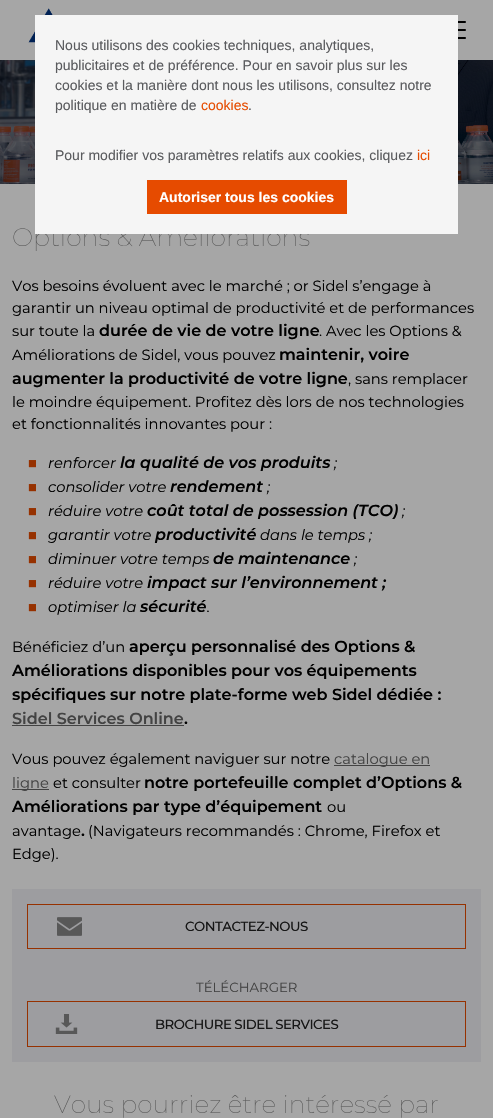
void draw(SkCanvas* canvas) {
  SkPaint paint;
  paint.setAntiAlias(true);
  auto face = [&](const char* family, int weight, float size, bool italic = false) {
    SkFontStyle style(weight, SkFontStyle::kNormal_Width,
      italic ? SkFontStyle::kItalic_Slant : SkFontStyle::kUpright_Slant);
    SkFont result(fontMgr->matchFamilyStyle(family, style), size);
    result.setSubpixel(true);
    return result;
  };
  auto writeSpaced = [&](const char* s, float x, float y, const SkFont& font, const SkPaint& ink, float letter, float word) {
    std::vector<SkGlyphID> glyphs(font.countText(s, strlen(s), SkTextEncoding::kUTF8));
    std::vector<float> xs(glyphs.size());
    font.textToGlyphs(s, strlen(s), SkTextEncoding::kUTF8, glyphs);
    font.getXPos(glyphs, xs, x);
    float extra = 0;
    for (size_t i = 0; i < glyphs.size(); i++) {
      xs[i] += extra;
      extra += letter + word * (glyphs[i] == font.unicharToGlyph(' '));
    }
    canvas->drawTextBlob(SkTextBlob::MakeFromPosHGlyphs(glyphs, xs, y, font), 0, 0, ink);
  };
  auto paste = [&](const char* path, float x, float y, float w, float h) {
    auto image = SkImages::DeferredFromEncodedData(SkData::MakeFromFileName(path));
    canvas->drawImageRect(image, SkRect::MakeXYWH(x, y, w, h), SkSamplingOptions());
  };
  canvas->clear(0xffa6a6a6);
  paste("img/1.png", 28, 8, 25, 35);
  paste("img/2.png", 458, 21, 8, 18);
  paste("img/3.png", 0, 60, 493, 124);
  {
    const struct { float x, y, w, h; SkColor color; } items[] = {
      {12, 725, 172, 1, 0xff434343},
      {334, 765, 96, 1, 0xff434343},
      {12, 789, 37, 1, 0xff434343},
      {12, 889, 469, 173, 0xff9d9da0},
    };
    for (auto [x, y, w, h, color] : items) {
      paint.setColor(color);
      canvas->drawRect(SkRect::MakeXYWH(x, y, w, h), paint);
    }
  }
  paint.setStroke(true);
  paint.setStrokeWidth(1);
  paint.setColor(0xff963100);
  canvas->drawRect(SkRect::MakeXYWH(27.5f, 904.5f, 438, 44), paint);
  paste("img/4.png", 57, 917, 25, 19);
  canvas->drawRect(SkRect::MakeXYWH(27.5f, 1001.5f, 438, 45), paint);
  paste("img/5.png", 55, 1014, 23, 20);
  auto f0 = face("Montserrat", 100, 25.25f);
  paint.setStroke(false);
  paint.setColor(0xff585858);
  canvas->drawString("Options & Améliorations", 12, 246, f0, paint);
  paint.setColor(0xfff5f5f5);
  canvas->drawRect(SkRect::MakeXYWH(35, 15, 423, 219), paint);
  paint.setColor(0xffe64b00);
  canvas->drawRect(SkRect::MakeXYWH(147, 180, 200, 34), paint);
  auto f1 = face("Liberation Sans", 700, 14);
  paint.setColor(0xffffffff);
  canvas->drawString("Autoriser tous les cookies", 159, 202, f1, paint);
  auto f2 = face("Liberation Sans", 400, 14);
  paint.setColor(0xffe64c00);
  canvas->drawString("ici", 417, 160, f2, paint);
  paint.setColor(0xff5a5b5e);
  canvas->drawString("Pour modifier vos paramètres relatifs aux cookies, cliquez", 55, 160, f2, paint);
  canvas->drawString(".", 248, 110, f2, paint);
  paint.setColor(0xffe64c00);
  canvas->drawString("cookies", 201, 110, f2, paint);
  paint.setColor(0xff5a5b5e);
  {
    const struct { const char* s; float x, y; } items[] = {
      {"politique en matière de", 55, 110},
      {"cookies et la manière dont nous les utilisons, consultez notre", 55, 90},
      {"publicitaires et de préférence. Pour en savoir plus sur les", 55, 70},
      {"Nous utilisons des cookies techniques, analytiques,", 55, 50},
    };
    for (auto [s, x, y] : items) {
      canvas->drawString(s, x, y, f2, paint);
    }
  }
  auto f3 = face("Montserrat", 400, 14.7f);
  paint.setColor(0xff000000);
  {
    const struct { const char* s; float x, y; } items[] = {
      {"Vos besoins évoluent avec le marché ; or Sidel s’engage à", 12, 291},
      {"garantir un niveau optimal de productivité et de performances", 12, 313},
      {"sur toute la", 12, 336},
    };
    for (auto [s, x, y] : items) {
      canvas->drawString(s, x, y, f3, paint);
    }
  }
  auto f4 = face("Montserrat", 600, 16);
  canvas->drawString("durée de vie de votre ligne", 99, 336, f4, paint);
  canvas->drawString(". Avec les Options &", 319, 336, f3, paint);
  canvas->drawString("Améliorations de Sidel, vous pouvez", 12, 360, f3, paint);
  canvas->drawString("maintenir, voire", 279, 360, f4, paint);
  canvas->drawString("augmenter la productivité de votre ligne", 12, 384, f4, paint);
  {
    const struct { const char* s; float x, y; } items[] = {
      {", sans remplacer", 348, 384},
      {"le moindre équipement. Profitez dès lors de nos technologies", 12, 407},
      {"et fonctionnalités innovantes pour :", 12, 429},
    };
    for (auto [s, x, y] : items) {
      canvas->drawString(s, x, y, f3, paint);
    }
  }
  auto f5 = face("Liberation Serif", 400, 14.7f, true);
  paint.setColor(0xff963100);
  canvas->drawString("■", 28, 468, f5, paint);
  auto f6 = face("Montserrat", 400, 14.7f, true);
  paint.setColor(0xff000000);
  canvas->drawString("renforcer", 48, 468, f6, paint);
  auto f7 = face("Montserrat", 600, 16, true);
  canvas->drawString("la qualité de vos produits", 120, 468, f7, paint);
  canvas->drawString(";", 334, 468, f6, paint);
  paint.setColor(0xff963100);
  canvas->drawString("■", 28, 492, f5, paint);
  paint.setColor(0xff000000);
  canvas->drawString("consolider votre", 48, 492, f6, paint);
  canvas->drawString("rendement", 170, 492, f7, paint);
  canvas->drawString(";", 267, 492, f6, paint);
  paint.setColor(0xff963100);
  canvas->drawString("■", 28, 516, f5, paint);
  paint.setColor(0xff000000);
  canvas->drawString("réduire votre", 48, 516, f6, paint);
  canvas->drawString("coût total de possession (TCO)", 147, 516, f7, paint);
  canvas->drawString(";", 402, 516, f6, paint);
  paint.setColor(0xff963100);
  canvas->drawString("■", 28, 540, f5, paint);
  paint.setColor(0xff000000);
  canvas->drawString("garantir votre", 48, 540, f6, paint);
  canvas->drawString("productivité", 155, 540, f7, paint);
  canvas->drawString("dans le temps ;", 260, 540, f6, paint);
  paint.setColor(0xff963100);
  canvas->drawString("■", 28, 564, f5, paint);
  paint.setColor(0xff000000);
  canvas->drawString("diminuer votre temps", 48, 564, f6, paint);
  canvas->drawString("de", 213, 564, f7, paint);
  canvas->drawString("maintenance", 238, 564, f7, paint);
  canvas->drawString(";", 354, 564, f6, paint);
  paint.setColor(0xff963100);
  canvas->drawString("■", 28, 588, f5, paint);
  paint.setColor(0xff000000);
  canvas->drawString("réduire votre", 48, 588, f6, paint);
  canvas->drawString("impact sur l’environnement ;", 147, 588, f7, paint);
  paint.setColor(0xff963100);
  canvas->drawString("■", 28, 612, f5, paint);
  paint.setColor(0xff000000);
  canvas->drawString("optimiser la", 48, 612, f6, paint);
  canvas->drawString("sécurité", 140, 612, f7, paint);
  canvas->drawString(".", 207, 612, f6, paint);
  canvas->drawString("Bénéficiez d’un", 12, 652, f3, paint);
  {
    const struct { const char* s; float x, y; } items[] = {
      {"aperçu personnalisé des Options &", 129, 652},
      {"Améliorations disponibles pour vos équipements", 12, 676},
      {"spécifiques sur notre plate-forme web Sidel dédiée :", 12, 700},
    };
    for (auto [s, x, y] : items) {
      canvas->drawString(s, x, y, f4, paint);
    }
  }
  paint.setColor(0xff434343);
  canvas->drawString("Sidel Services Online", 12, 724, f4, paint);
  paint.setColor(0xff000000);
  canvas->drawString(".", 184, 724, f4, paint);
  canvas->drawString("Vous pouvez également naviguer sur notre", 12, 764, f3, paint);
  paint.setColor(0xff434343);
  canvas->drawString("catalogue en", 334, 764, f3, paint);
  canvas->drawString("ligne", 12, 788, f3, paint);
  paint.setColor(0xff000000);
  canvas->drawString("et consulter", 53, 788, f3, paint);
  canvas->drawString("notre portefeuille complet d’Options &", 144, 788, f4, paint);
  canvas->drawString("Améliorations par type d’équipement", 12, 812, f4, paint);
  canvas->drawString("ou", 327, 812, f3, paint);
  canvas->drawString("avantage", 12, 836, f3, paint);
  canvas->drawString(".", 81, 836, f4, paint);
  canvas->drawString("(Navigateurs recommandés : Chrome, Firefox et", 88, 836, f3, paint);
  canvas->drawString("Edge).", 12, 859, f3, paint);
  auto f8 = face("Montserrat", 500, 13.3f);
  paint.setColor(0xff161616);
  writeSpaced("CONTACTEZ-NOUS", 185, 931, f8, paint, -0.5f, 0);
  auto f9 = face("Montserrat", 400, 13.3f);
  paint.setColor(0xff434343);
  canvas->drawString("TÉLÉCHARGER", 196, 992, f9, paint);
  paint.setColor(0xff161616);
  writeSpaced("BROCHURE SIDEL SERVICES", 155, 1029, f8, paint, -0.5f, 0);
  auto f10 = face("Montserrat", 100, 25);
  paint.setColor(0xff585858);
  canvas->drawString("Vous pourriez être intéressé par", 54, 1113, f10, paint);
}
